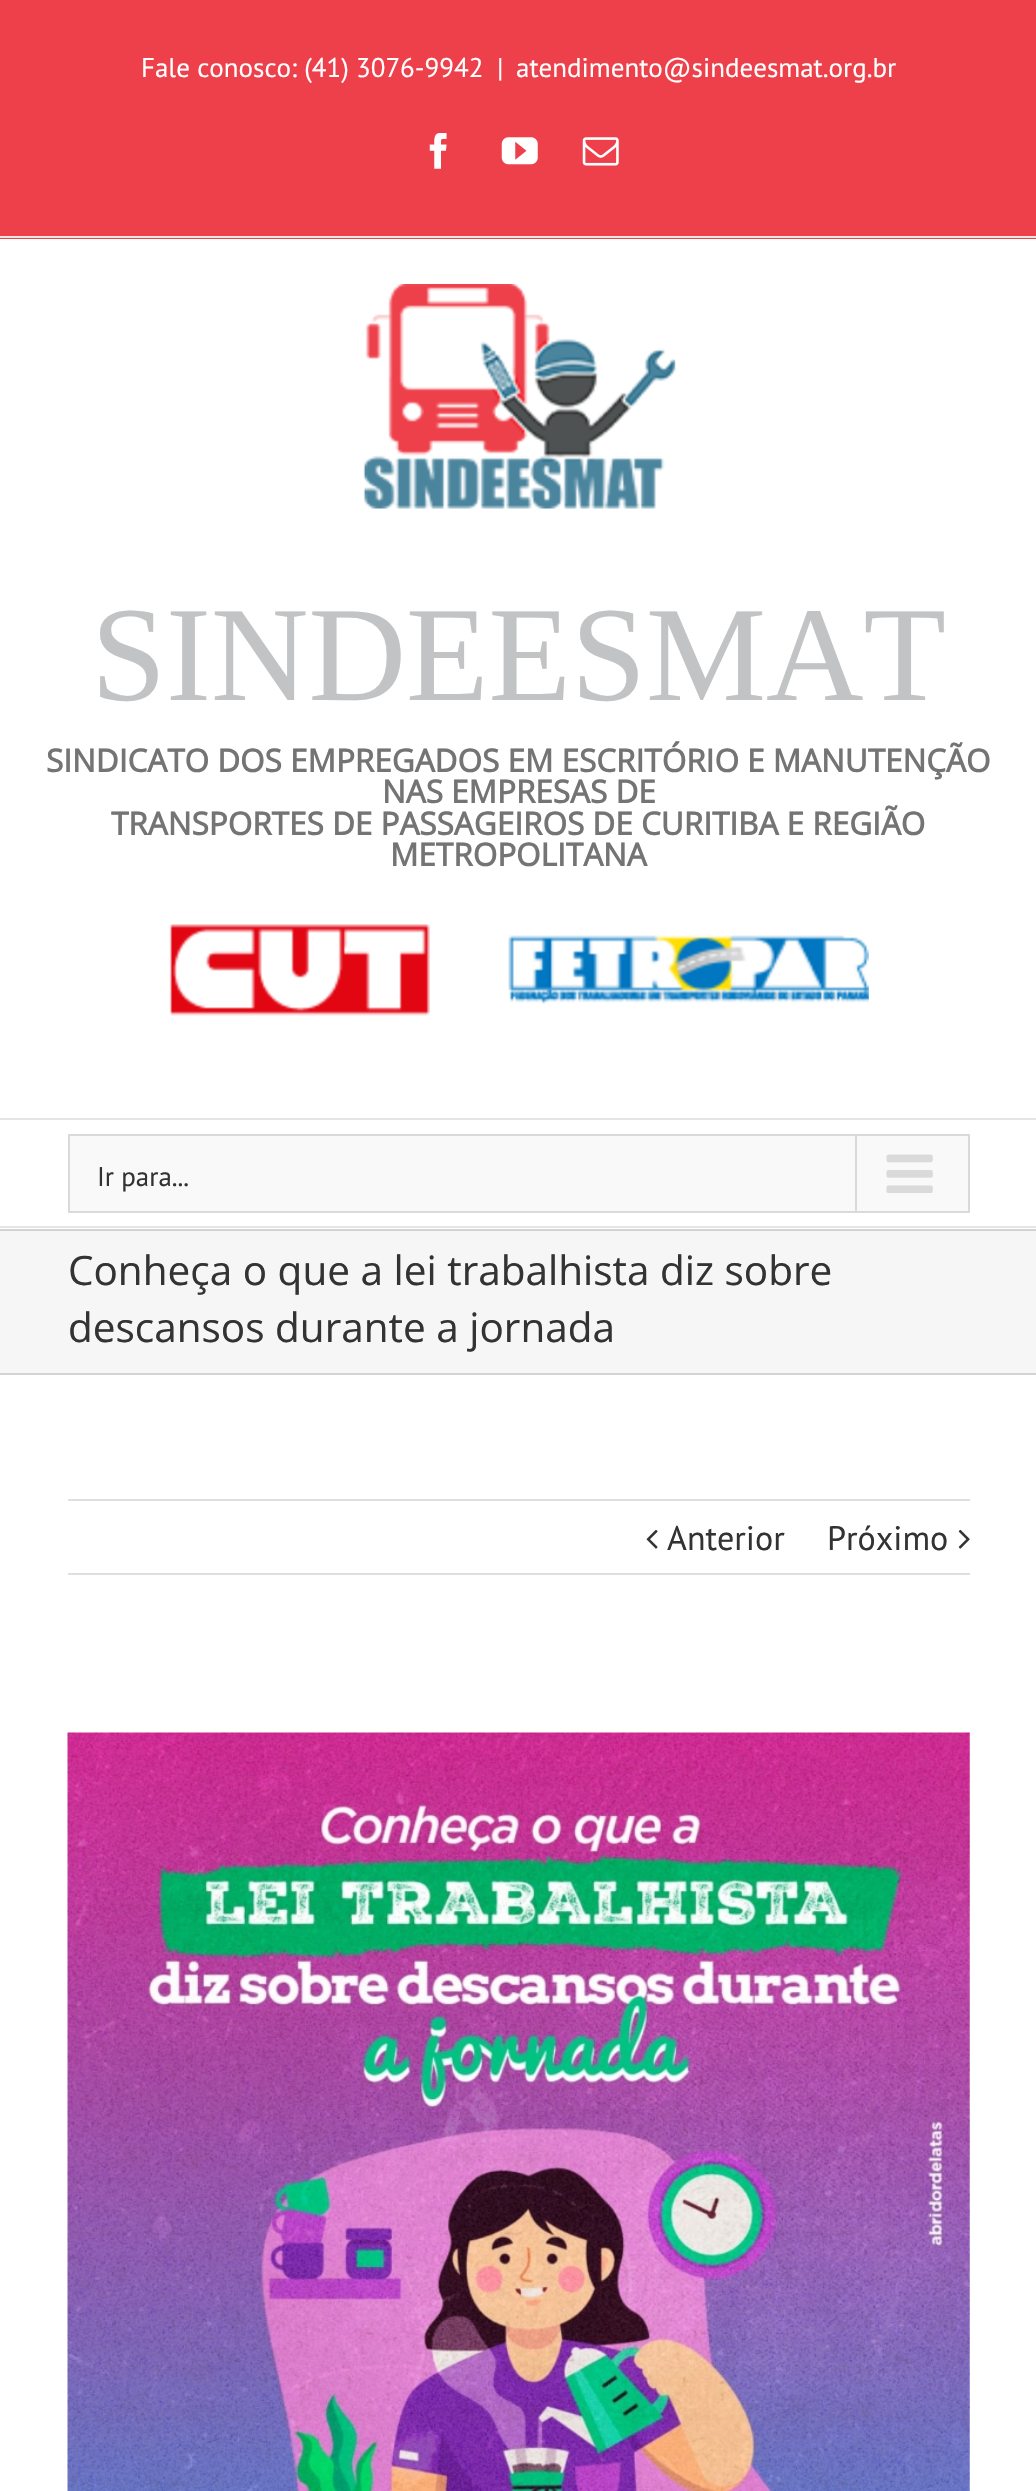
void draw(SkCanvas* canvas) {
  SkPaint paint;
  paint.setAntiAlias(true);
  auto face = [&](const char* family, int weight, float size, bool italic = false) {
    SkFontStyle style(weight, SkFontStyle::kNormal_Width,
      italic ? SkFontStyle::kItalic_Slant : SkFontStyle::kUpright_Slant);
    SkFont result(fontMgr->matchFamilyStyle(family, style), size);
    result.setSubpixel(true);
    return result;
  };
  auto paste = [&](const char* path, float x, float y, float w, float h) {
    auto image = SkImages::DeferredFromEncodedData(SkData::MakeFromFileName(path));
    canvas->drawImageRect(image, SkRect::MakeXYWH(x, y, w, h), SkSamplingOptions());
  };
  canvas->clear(0xffffffff);
  paint.setColor(0xffee404a);
  canvas->drawRect(SkRect::MakeXYWH(0, 0, 1036, 239), paint);
  paint.setColor(0xffe5e5e5);
  canvas->drawRect(SkRect::MakeXYWH(0, 236, 1036, 2), paint);
  paste("img/1.png", 429, 133, 18, 36);
  paste("img/2.png", 501, 137, 37, 28);
  paste("img/3.png", 582, 137, 37, 29);
  canvas->drawRect(SkRect::MakeXYWH(0, 1118, 1036, 2), paint);
  paste("img/4.png", 363, 284, 313, 225);
  paste("img/5.png", 169, 924, 261, 92);
  paste("img/6.png", 508, 935, 361, 69);
  canvas->drawRect(SkRect::MakeXYWH(0, 1226, 1036, 2), paint);
  paint.setColor(0xfff9f9f9);
  canvas->drawRect(SkRect::MakeXYWH(69, 1135, 900, 77), paint);
  paint.setStroke(true);
  paint.setStrokeWidth(2);
  paint.setColor(0xffdadada);
  canvas->drawRect(SkRect::MakeXYWH(69, 1135, 900, 77), paint);
  paint.setStroke(false);
  canvas->drawRect(SkRect::MakeXYWH(855, 1136, 2, 75), paint);
  paste("img/7.png", 886, 1154, 47, 39);
  {
    const struct { float x, y, w, h; SkColor color; } items[] = {
      {0, 1231, 1036, 142, 0xfff6f6f6},
      {0, 1229, 1036, 2, 0xffd2d3d4},
      {0, 1373, 1036, 2, 0xffd2d3d4},
      {68, 1499, 902, 2, 0xffe0dede},
      {68, 1573, 902, 2, 0xffe0dede},
    };
    for (auto [x, y, w, h, color] : items) {
      paint.setColor(color);
      canvas->drawRect(SkRect::MakeXYWH(x, y, w, h), paint);
    }
  }
  paste("img/8.png", 646, 1529, 12, 20);
  paste("img/9.png", 958, 1529, 12, 20);
  paste("img/10.png", 67, 1732, 903, 759);
  auto f0 = face("PT Sans", 400, 27);
  paint.setColor(0xffffffff);
  {
    const struct { const char* s; float x, y; } items[] = {
      {"Fale conosco: (41) 3076-9942", 141, 77},
      {"|", 497, 77},
      {"atendimento@sindeesmat.org.br", 516, 77},
    };
    for (auto [s, x, y] : items) {
      canvas->drawString(s, x, y, f0, paint);
    }
  }
  auto f1 = face("Liberation Serif", 400, 135);
  paint.setColor(0xffc1c3c5);
  canvas->drawString("SINDEESMAT", 91, 700, f1, paint);
  auto f2 = face("Open Sans", 700, 31.5f);
  paint.setColor(0xff747474);
  {
    const struct { const char* s; float x, y; } items[] = {
      {"SINDICATO DOS EMPREGADOS EM ESCRITÓRIO E MANUTENÇÃO", 46, 772},
      {"NAS EMPRESAS DE", 382, 803},
      {"TRANSPORTES DE PASSAGEIROS DE CURITIBA E REGIÃO", 111, 835},
      {"METROPOLITANA", 390, 866},
    };
    for (auto [s, x, y] : items) {
      canvas->drawString(s, x, y, f2, paint);
    }
  }
  paint.setColor(0xff333333);
  canvas->drawString("Ir para...", 97, 1186, f0, paint);
  auto f3 = face("Open Sans", 400, 40.5f);
  canvas->drawString("Conheça o que a lei trabalhista diz sobre", 68, 1285, f3, paint);
  canvas->drawString("descansos durante a jornada", 68, 1342, f3, paint);
  auto f4 = face("PT Sans", 400, 34);
  canvas->drawString("Anterior", 667, 1550, f4, paint);
  canvas->drawString("Próximo", 827, 1550, f4, paint);
}
